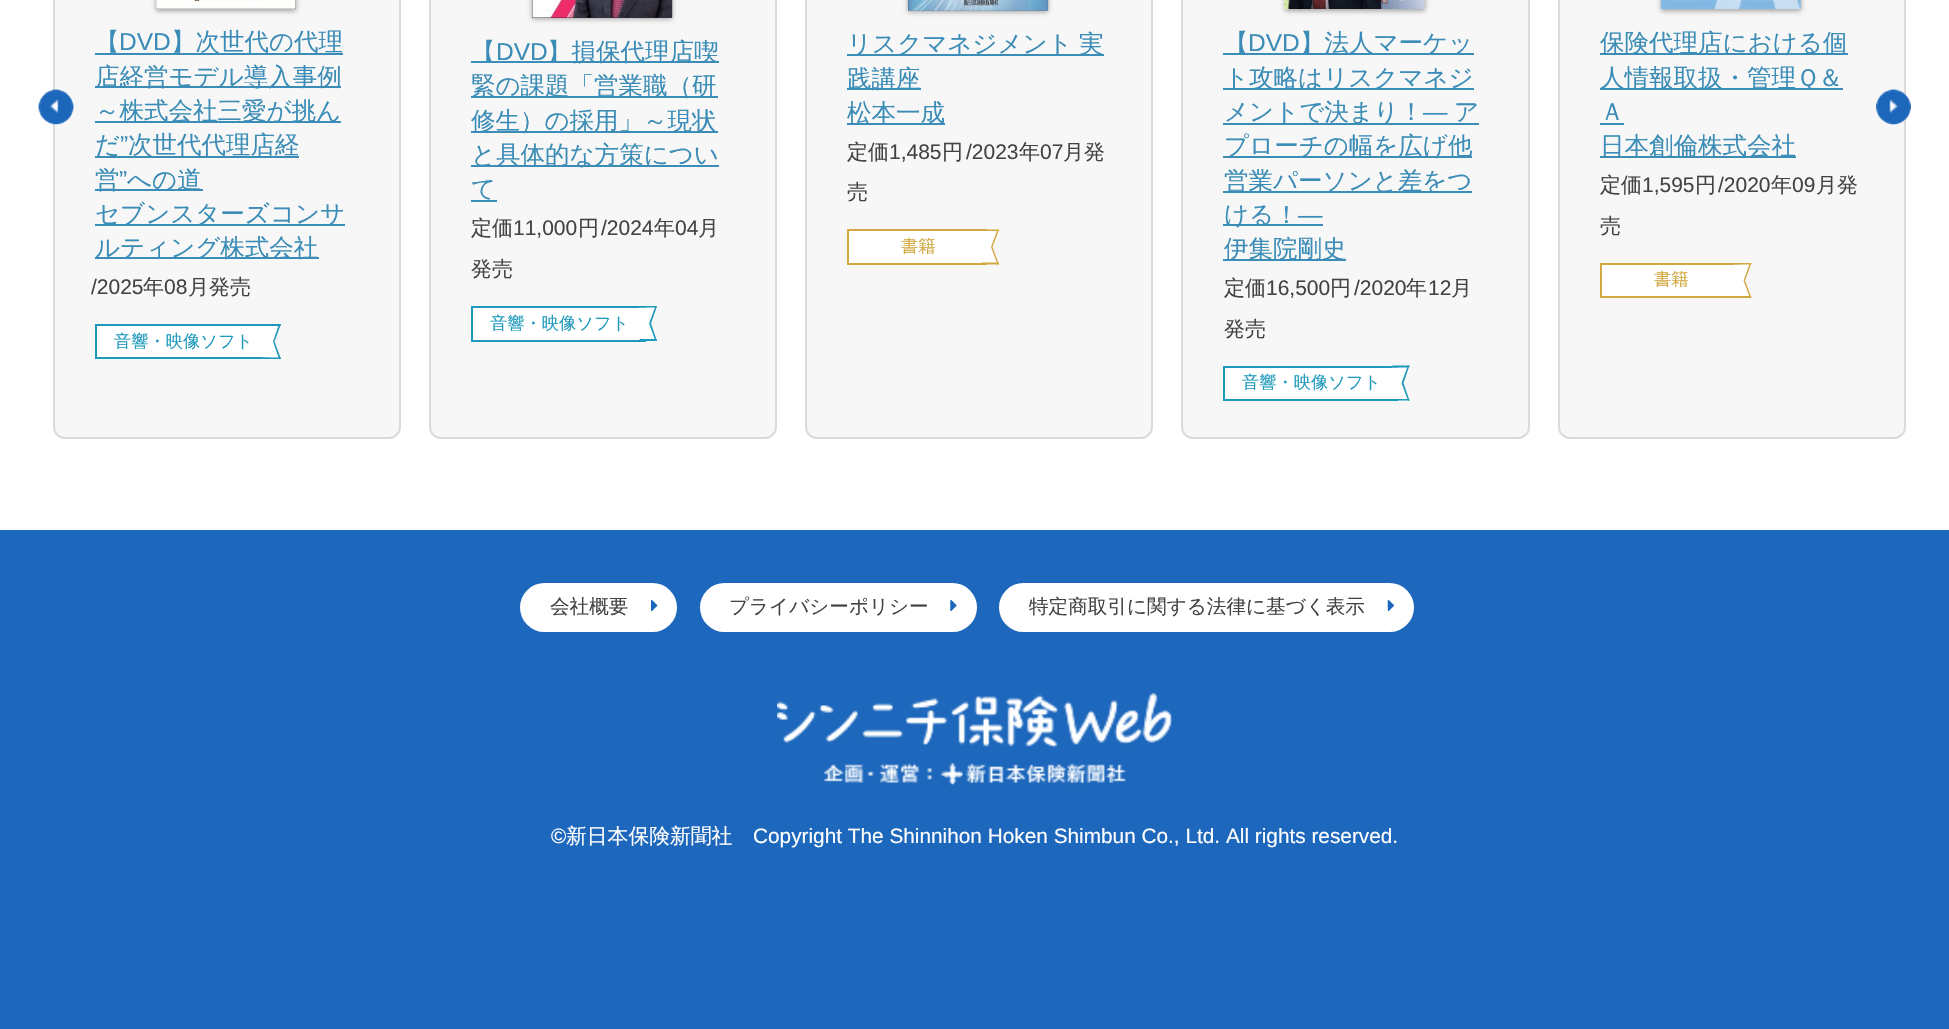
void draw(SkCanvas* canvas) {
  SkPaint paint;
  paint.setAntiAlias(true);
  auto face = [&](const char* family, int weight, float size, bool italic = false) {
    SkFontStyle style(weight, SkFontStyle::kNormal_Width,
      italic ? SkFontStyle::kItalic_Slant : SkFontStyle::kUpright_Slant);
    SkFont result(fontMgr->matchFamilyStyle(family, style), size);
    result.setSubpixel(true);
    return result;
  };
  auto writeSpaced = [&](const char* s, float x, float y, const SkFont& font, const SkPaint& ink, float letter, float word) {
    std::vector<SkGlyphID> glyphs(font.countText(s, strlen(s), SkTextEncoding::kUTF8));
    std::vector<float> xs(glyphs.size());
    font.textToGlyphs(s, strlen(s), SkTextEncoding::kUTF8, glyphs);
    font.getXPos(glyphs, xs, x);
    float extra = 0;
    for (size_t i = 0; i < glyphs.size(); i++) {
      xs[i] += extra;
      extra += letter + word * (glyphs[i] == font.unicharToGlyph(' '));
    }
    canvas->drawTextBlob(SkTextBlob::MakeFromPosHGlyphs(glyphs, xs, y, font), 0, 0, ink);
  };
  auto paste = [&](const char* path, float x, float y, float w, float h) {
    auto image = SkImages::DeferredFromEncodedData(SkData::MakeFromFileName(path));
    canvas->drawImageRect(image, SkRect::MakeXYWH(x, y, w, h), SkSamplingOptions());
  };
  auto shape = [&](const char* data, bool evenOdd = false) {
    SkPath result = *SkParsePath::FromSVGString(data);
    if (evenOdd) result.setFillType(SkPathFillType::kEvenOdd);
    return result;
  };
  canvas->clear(0xffffffff);
  paint.setColor(0xfff7f7f7);
  canvas->drawRoundRect(SkRect::MakeXYWH(54, -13, 346, 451), 11, 11, paint);
  paint.setStroke(true);
  paint.setStrokeWidth(2);
  paint.setColor(0xffdcd9d9);
  canvas->drawRoundRect(SkRect::MakeXYWH(54, -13, 346, 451), 11, 11, paint);
  paste("img/1.png", 38, 89, 36, 36);
  paint.setStroke(false);
  paint.setColor(0x59000000);
  paint.setMaskFilter(SkMaskFilter::MakeBlur(kNormal_SkBlurStyle, 2.5f));
  canvas->drawRect(SkRect::MakeXYWH(156, -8, 140, 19), paint);
  paint.setMaskFilter(nullptr);
  paste("img/2.png", 156, 0, 140, 9);
  {
    const struct { float x, y, w, h; SkColor color; } items[] = {
      {95, 53, 248, 2, 0xff3b8cb6},
      {95, 86, 246, 2, 0xff3b8cb6},
      {95, 121, 246, 2, 0xff3b8cb6},
      {95, 156, 204, 2, 0xff3b8cb6},
      {95, 189, 108, 2, 0xff3b8cb6},
      {95, 224, 250, 2, 0xff3b8cb6},
      {95, 257, 224, 2, 0xff3b8cb6},
      {97, 326, 173, 31, 0xffffffff},
      {95, 324, 175, 2, 0xff1d99bb},
      {95, 357, 175, 2, 0xff1d99bb},
      {95, 324, 2, 35, 0xff1d99bb},
    };
    for (auto [x, y, w, h, color] : items) {
      paint.setColor(color);
      canvas->drawRect(SkRect::MakeXYWH(x, y, w, h), paint);
    }
  }
  paint.setColor(0xffffffff);
  canvas->drawPath(shape("M263 326H278.5L273 341.5H257.5Z"), paint);
  paint.setColor(0xff1d99bb);
  canvas->drawPath(shape("M264 324H281L280.5 326H263Z"), paint);
  canvas->drawPath(shape("M279 324H281L274.5 341.5H273Z"), paint);
  paint.setColor(0xffffffff);
  canvas->drawPath(shape("M257.5 341.5H273L278.5 357.5H263Z"), paint);
  paint.setColor(0xff1d99bb);
  canvas->drawPath(shape("M273 341.5H274.5L281 359H279Z"), paint);
  canvas->drawPath(shape("M263 357.5H280.5L281 359H264Z"), paint);
  paint.setColor(0xfff7f7f7);
  canvas->drawRoundRect(SkRect::MakeXYWH(430, -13, 346, 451), 11, 11, paint);
  paint.setStroke(true);
  paint.setColor(0xffdcd9d9);
  canvas->drawRoundRect(SkRect::MakeXYWH(430, -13, 346, 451), 11, 11, paint);
  paint.setStroke(false);
  paint.setColor(0x59000000);
  paint.setMaskFilter(SkMaskFilter::MakeBlur(kNormal_SkBlurStyle, 2.5f));
  canvas->drawRect(SkRect::MakeXYWH(532, -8, 140, 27), paint);
  paint.setMaskFilter(nullptr);
  paste("img/3.png", 532, 0, 141, 18);
  {
    const struct { float x, y, w, h; SkColor color; } items[] = {
      {471, 61, 248, 2, 0xff3b8cb6},
      {471, 96, 247, 2, 0xff3b8cb6},
      {471, 131, 247, 2, 0xff3b8cb6},
      {471, 165, 248, 2, 0xff3b8cb6},
      {471, 200, 26, 2, 0xff3b8cb6},
      {473, 308, 173, 32, 0xffffffff},
      {471, 306, 175, 2, 0xff1d99bb},
      {471, 340, 175, 2, 0xff1d99bb},
      {471, 306, 2, 35, 0xff1d99bb},
    };
    for (auto [x, y, w, h, color] : items) {
      paint.setColor(color);
      canvas->drawRect(SkRect::MakeXYWH(x, y, w, h), paint);
    }
  }
  paint.setColor(0xffffffff);
  canvas->drawPath(shape("M639.5 307.5H655L649 323.5H633.5Z"), paint);
  paint.setColor(0xff1d99bb);
  canvas->drawPath(shape("M640 306H657L656.5 307.5H639.5Z"), paint);
  canvas->drawPath(shape("M655.5 306H657L651 323.5H649Z"), paint);
  paint.setColor(0xffffffff);
  canvas->drawPath(shape("M633.5 323.5H649L655 339H639.5Z"), paint);
  paint.setColor(0xff1d99bb);
  canvas->drawPath(shape("M649 323.5H651L657 341H655.5Z"), paint);
  canvas->drawPath(shape("M639.5 339H656.5L657 341H640Z"), paint);
  paint.setColor(0xfff7f7f7);
  canvas->drawRoundRect(SkRect::MakeXYWH(806, -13, 346, 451), 11, 11, paint);
  paint.setStroke(true);
  paint.setColor(0xffdcd9d9);
  canvas->drawRoundRect(SkRect::MakeXYWH(806, -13, 346, 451), 11, 11, paint);
  paint.setStroke(false);
  paint.setColor(0x59000000);
  paint.setMaskFilter(SkMaskFilter::MakeBlur(kNormal_SkBlurStyle, 2.5f));
  canvas->drawRect(SkRect::MakeXYWH(908, -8, 140, 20), paint);
  paint.setMaskFilter(nullptr);
  paste("img/4.png", 908, 0, 141, 11);
  {
    const struct { float x, y, w, h; SkColor color; } items[] = {
      {847, 54, 257, 2, 0xff3b8cb6},
      {847, 88, 74, 2, 0xff3b8cb6},
      {847, 123, 98, 2, 0xff3b8cb6},
      {849, 231, 138, 32, 0xffffffff},
      {847, 229, 140, 2, 0xffd2a940},
      {847, 263, 140, 2, 0xffd2a940},
      {847, 229, 2, 35, 0xffd2a940},
    };
    for (auto [x, y, w, h, color] : items) {
      paint.setColor(color);
      canvas->drawRect(SkRect::MakeXYWH(x, y, w, h), paint);
    }
  }
  paint.setColor(0xffffffff);
  canvas->drawPath(shape("M981.5 231H996.5L991 247H975.5Z"), paint);
  paint.setColor(0xffd2a940);
  canvas->drawPath(shape("M982 229.5H999L998.5 231H981.5Z"), paint);
  canvas->drawPath(shape("M997.5 229.5H999L992.5 247H991Z"), paint);
  paint.setColor(0xffffffff);
  canvas->drawPath(shape("M975.5 247H991L996.5 262.5H981.5Z"), paint);
  paint.setColor(0xffd2a940);
  canvas->drawPath(shape("M991 247H992.5L999 264.5H997.5Z"), paint);
  canvas->drawPath(shape("M981.5 262.5H998.5L999 264.5H982Z"), paint);
  paint.setColor(0xfff7f7f7);
  canvas->drawRoundRect(SkRect::MakeXYWH(1182, -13, 347, 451), 11, 11, paint);
  paint.setStroke(true);
  paint.setColor(0xffdcd9d9);
  canvas->drawRoundRect(SkRect::MakeXYWH(1182, -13, 347, 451), 11, 11, paint);
  paint.setStroke(false);
  paint.setColor(0x59000000);
  paint.setMaskFilter(SkMaskFilter::MakeBlur(kNormal_SkBlurStyle, 2.5f));
  canvas->drawRect(SkRect::MakeXYWH(1285, -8, 140, 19), paint);
  paint.setMaskFilter(nullptr);
  paste("img/5.png", 1284, 0, 141, 9);
  {
    const struct { float x, y, w, h; SkColor color; } items[] = {
      {1223, 53, 251, 2, 0xff3b8cb6},
      {1223, 88, 251, 2, 0xff3b8cb6},
      {1223, 123, 256, 2, 0xff3b8cb6},
      {1223, 156, 249, 2, 0xff3b8cb6},
      {1223, 191, 249, 2, 0xff3b8cb6},
      {1223, 224, 100, 2, 0xff3b8cb6},
      {1223, 259, 123, 2, 0xff3b8cb6},
      {1225, 368, 167, 31, 0xffffffff},
      {1223, 366, 175, 2, 0xff1d99bb},
      {1223, 399, 175, 2, 0xff1d99bb},
      {1223, 366, 2, 35, 0xff1d99bb},
    };
    for (auto [x, y, w, h, color] : items) {
      paint.setColor(color);
      canvas->drawRect(SkRect::MakeXYWH(x, y, w, h), paint);
    }
  }
  paint.setColor(0xffffffff);
  canvas->drawPath(shape("M1392 367.5H1407.5L1401.5 383H1386Z"), paint);
  paint.setColor(0xff1d99bb);
  canvas->drawPath(shape("M1392.5 365.5H1409.5L1409 367.5H1392Z"), paint);
  canvas->drawPath(shape("M1408 365.5H1409.5L1403.5 383H1401.5Z"), paint);
  paint.setColor(0xffffffff);
  canvas->drawPath(shape("M1386 383H1401.5L1407.5 399H1392Z"), paint);
  paint.setColor(0xff1d99bb);
  canvas->drawPath(shape("M1401.5 383H1403.5L1409.5 400.5H1408Z"), paint);
  canvas->drawPath(shape("M1392 399H1409L1409.5 400.5H1392.5Z"), paint);
  paint.setColor(0xfff7f7f7);
  canvas->drawRoundRect(SkRect::MakeXYWH(1559, -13, 346, 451), 11, 11, paint);
  paint.setStroke(true);
  paint.setColor(0xffdcd9d9);
  canvas->drawRoundRect(SkRect::MakeXYWH(1559, -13, 346, 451), 11, 11, paint);
  paint.setStroke(false);
  paint.setColor(0x59000000);
  paint.setMaskFilter(SkMaskFilter::MakeBlur(kNormal_SkBlurStyle, 2.5f));
  canvas->drawRect(SkRect::MakeXYWH(1661, -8, 140, 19), paint);
  paint.setMaskFilter(nullptr);
  paste("img/6.png", 1661, 0, 140, 9);
  {
    const struct { float x, y, w, h; SkColor color; } items[] = {
      {1600, 53, 248, 2, 0xff3b8cb6},
      {1600, 88, 243, 2, 0xff3b8cb6},
      {1600, 123, 24, 2, 0xff3b8cb6},
      {1600, 156, 196, 2, 0xff3b8cb6},
      {1602, 265, 138, 31, 0xffffffff},
      {1600, 263, 140, 2, 0xffd2a940},
      {1600, 296, 140, 2, 0xffd2a940},
      {1600, 263, 2, 35, 0xffd2a940},
    };
    for (auto [x, y, w, h, color] : items) {
      paint.setColor(color);
      canvas->drawRect(SkRect::MakeXYWH(x, y, w, h), paint);
    }
  }
  paint.setColor(0xffffffff);
  canvas->drawPath(shape("M1734 264.5H1749L1743.5 280.5H1728Z"), paint);
  paint.setColor(0xffd2a940);
  canvas->drawPath(shape("M1734.5 263H1751.5L1751 264.5H1734Z"), paint);
  canvas->drawPath(shape("M1750 263H1751.5L1745 280.5H1743.5Z"), paint);
  paint.setColor(0xffffffff);
  canvas->drawPath(shape("M1728 280.5H1743.5L1749 296H1734Z"), paint);
  paint.setColor(0xffd2a940);
  canvas->drawPath(shape("M1743.5 280.5H1745L1751.5 298H1750Z"), paint);
  canvas->drawPath(shape("M1734 296H1751L1751.5 298H1734.5Z"), paint);
  paste("img/7.png", 1876, 89, 35, 36);
  paint.setColor(0xff1d67bc);
  canvas->drawRect(SkRect::MakeXYWH(0, 530, 1949, 499), paint);
  paint.setColor(0xffffffff);
  canvas->drawRoundRect(SkRect::MakeXYWH(520, 583, 157, 49), 24.5f, 24.5f, paint);
  paste("img/8.png", 651, 599, 7, 13);
  canvas->drawRoundRect(SkRect::MakeXYWH(700, 583, 277, 49), 24.5f, 24.5f, paint);
  paste("img/9.png", 950, 600, 7, 11);
  canvas->drawRoundRect(SkRect::MakeXYWH(999, 583, 415, 49), 24.5f, 24.5f, paint);
  paste("img/10.png", 1387, 599, 7, 13);
  paste("img/11.png", 777, 693, 396, 92);
  auto f0 = face("WenQuanYi Zen Hei", 500, 24.5f);
  paint.setColor(0xff3b8cb6);
  canvas->drawString("【", 95, 50, f0, paint);
  auto f1 = face("Liberation Sans", 400, 24.5f);
  canvas->drawString("DVD", 119, 50, f1, paint);
  {
    const struct { const char* s; float x, y; } items[] = {
      {"】次世代の代理", 171, 50},
      {"店経営モデル導入事例", 95, 85},
      {"～株式会社三愛が挑ん", 95, 119},
      {"だ", 95, 153},
    };
    for (auto [s, x, y] : items) {
      canvas->drawString(s, x, y, f0, paint);
    }
  }
  canvas->drawString("”", 120, 153, f1, paint);
  canvas->drawString("次世代代理店経", 128, 153, f0, paint);
  canvas->drawString("営", 95, 188, f0, paint);
  canvas->drawString("”", 119, 188, f1, paint);
  {
    const struct { const char* s; float x, y; } items[] = {
      {"への道", 127, 188},
      {"セブンスターズコンサ", 95, 222},
      {"ルティング株式会社", 95, 256},
    };
    for (auto [s, x, y] : items) {
      canvas->drawString(s, x, y, f0, paint);
    }
  }
  auto f2 = face("Liberation Sans", 400, 21);
  paint.setColor(0xff434343);
  canvas->drawString("/2025", 91, 294, f2, paint);
  auto f3 = face("WenQuanYi Zen Hei", 500, 21);
  canvas->drawString("年", 143, 294, f3, paint);
  canvas->drawString("08", 164, 294, f2, paint);
  canvas->drawString("月発売", 188, 294, f3, paint);
  auto f4 = face("WenQuanYi Zen Hei", 500, 17.25f);
  paint.setColor(0xff1d99bb);
  canvas->drawString("音響・映像ソフト", 114, 347, f4, paint);
  paint.setColor(0xff3b8cb6);
  canvas->drawString("【", 471, 60, f0, paint);
  canvas->drawString("DVD", 496, 60, f1, paint);
  {
    const struct { const char* s; float x, y; } items[] = {
      {"】損保代理店喫", 547, 60},
      {"緊の課題「営業職（研", 471, 94},
      {"修生）の採用」～現状", 471, 129},
      {"と具体的な方策につい", 471, 163},
      {"て", 471, 197},
    };
    for (auto [s, x, y] : items) {
      canvas->drawString(s, x, y, f0, paint);
    }
  }
  paint.setColor(0xff434343);
  canvas->drawString("定価", 471, 235, f3, paint);
  canvas->drawString("11,000", 513, 235, f2, paint);
  canvas->drawString("円", 578, 235, f3, paint);
  canvas->drawString("/2024", 601, 235, f2, paint);
  canvas->drawString("年", 654, 235, f3, paint);
  canvas->drawString("04", 675, 235, f2, paint);
  canvas->drawString("月", 698, 235, f3, paint);
  canvas->drawString("発売", 471, 276, f3, paint);
  paint.setColor(0xff1d99bb);
  canvas->drawString("音響・映像ソフト", 490, 329, f4, paint);
  paint.setColor(0xff3b8cb6);
  writeSpaced("リスクマネジメント 実", 847, 52, f0, paint, 0, -1);
  canvas->drawString("践講座", 847, 87, f0, paint);
  canvas->drawString("松本一成", 847, 121, f0, paint);
  paint.setColor(0xff434343);
  canvas->drawString("定価", 847, 159, f3, paint);
  canvas->drawString("1,485", 889, 159, f2, paint);
  canvas->drawString("円", 942, 159, f3, paint);
  canvas->drawString("/2023", 966, 159, f2, paint);
  canvas->drawString("年", 1019, 159, f3, paint);
  canvas->drawString("07", 1040, 159, f2, paint);
  canvas->drawString("月発", 1063, 159, f3, paint);
  canvas->drawString("売", 847, 199, f3, paint);
  paint.setColor(0xffd2a940);
  canvas->drawString("書籍", 901, 252, f4, paint);
  paint.setColor(0xff3b8cb6);
  canvas->drawString("【", 1224, 51, f0, paint);
  canvas->drawString("DVD", 1248, 51, f1, paint);
  {
    const struct { const char* s; float x, y; } items[] = {
      {"】法人マーケッ", 1300, 51},
      {"ト攻略はリスクマネジ", 1224, 86},
      {"メントで決まり！", 1224, 120},
    };
    for (auto [s, x, y] : items) {
      canvas->drawString(s, x, y, f0, paint);
    }
  }
  canvas->drawString("―", 1423, 120, f1, paint);
  {
    const struct { const char* s; float x, y; } items[] = {
      {"ア", 1454, 120},
      {"プローチの幅を広げ他", 1224, 154},
      {"営業パーソンと差をつ", 1224, 189},
      {"ける！", 1224, 223},
    };
    for (auto [s, x, y] : items) {
      canvas->drawString(s, x, y, f0, paint);
    }
  }
  canvas->drawString("―", 1298, 223, f1, paint);
  canvas->drawString("伊集院剛史", 1224, 257, f0, paint);
  paint.setColor(0xff434343);
  canvas->drawString("定価", 1224, 295, f3, paint);
  canvas->drawString("16,500", 1266, 295, f2, paint);
  canvas->drawString("円", 1330, 295, f3, paint);
  canvas->drawString("/2020", 1354, 295, f2, paint);
  canvas->drawString("年", 1406, 295, f3, paint);
  canvas->drawString("12", 1428, 295, f2, paint);
  canvas->drawString("月", 1451, 295, f3, paint);
  canvas->drawString("発売", 1224, 336, f3, paint);
  paint.setColor(0xff1d99bb);
  canvas->drawString("音響・映像ソフト", 1242, 388, f4, paint);
  paint.setColor(0xff3b8cb6);
  {
    const struct { const char* s; float x, y; } items[] = {
      {"保険代理店における個", 1600, 51},
      {"人情報取扱・管理Ｑ＆", 1600, 86},
      {"Ａ", 1600, 120},
      {"日本創倫株式会社", 1600, 154},
    };
    for (auto [s, x, y] : items) {
      canvas->drawString(s, x, y, f0, paint);
    }
  }
  paint.setColor(0xff434343);
  canvas->drawString("定価", 1600, 192, f3, paint);
  canvas->drawString("1,595", 1642, 192, f2, paint);
  canvas->drawString("円", 1695, 192, f3, paint);
  canvas->drawString("/2020", 1718, 192, f2, paint);
  canvas->drawString("年", 1771, 192, f3, paint);
  canvas->drawString("09", 1792, 192, f2, paint);
  canvas->drawString("月発", 1816, 192, f3, paint);
  canvas->drawString("売", 1600, 233, f3, paint);
  paint.setColor(0xffd2a940);
  canvas->drawString("書籍", 1654, 285, f4, paint);
  auto f5 = face("WenQuanYi Zen Hei", 500, 19.6f);
  paint.setColor(0xff434343);
  {
    const struct { const char* s; float x, y; } items[] = {
      {"会社概要", 550, 613},
      {"プライバシーポリシー", 729, 613},
      {"特定商取引に関する法律に基づく表示", 1029, 613},
    };
    for (auto [s, x, y] : items) {
      canvas->drawString(s, x, y, f5, paint);
    }
  }
  auto f6 = face("Liberation Sans", 400, 20.8f);
  paint.setColor(0xffffffff);
  canvas->drawString("©", 551, 843, f6, paint);
  auto f7 = face("WenQuanYi Zen Hei", 500, 20.8f);
  canvas->drawString("新日本保険新聞社", 566, 843, f7, paint);
  canvas->drawString("Copyright The Shinnihon Hoken Shimbun Co., Ltd. All rights reserved.", 753, 843, f6, paint);
}
